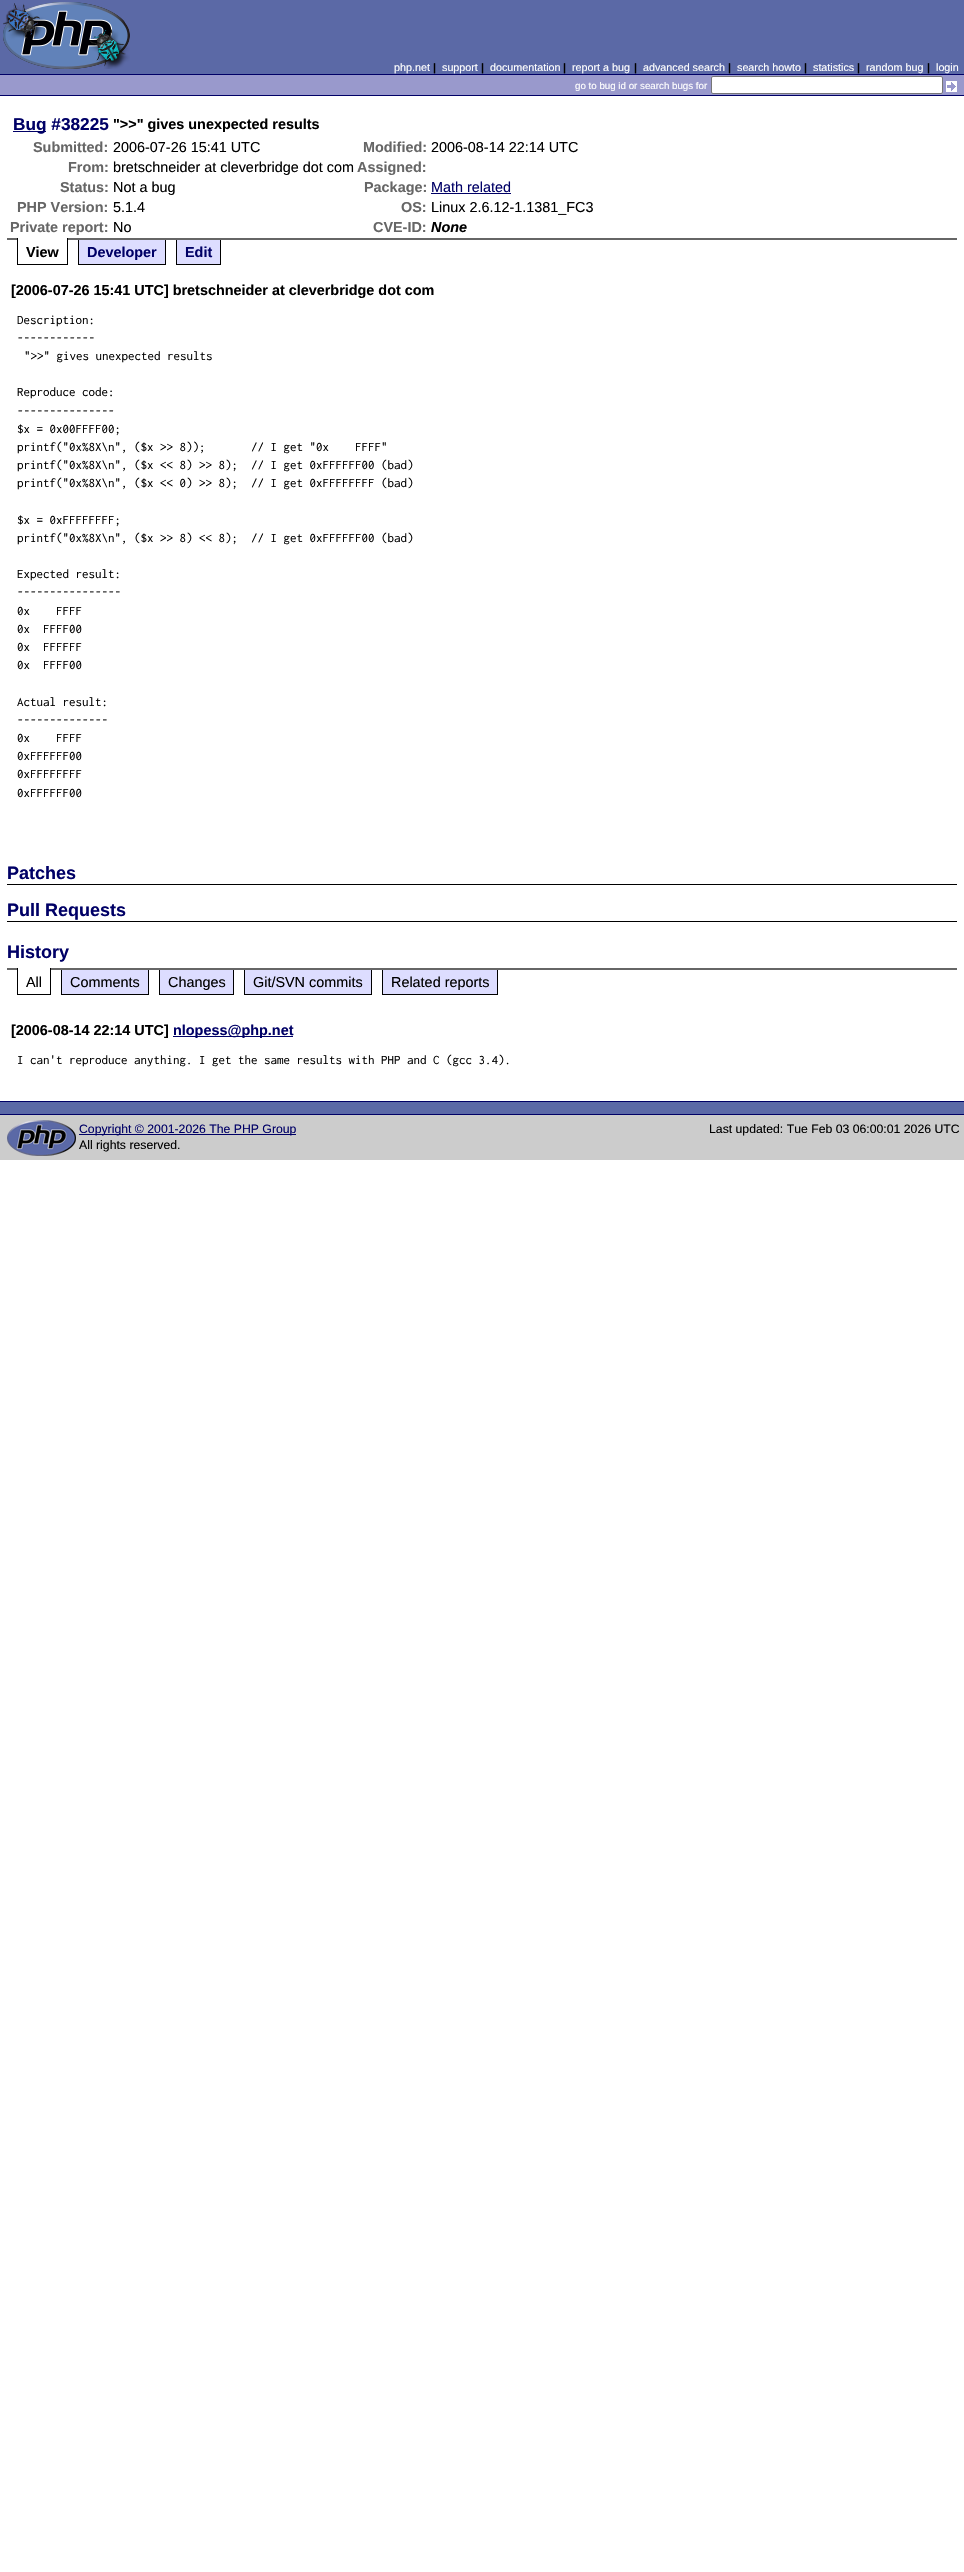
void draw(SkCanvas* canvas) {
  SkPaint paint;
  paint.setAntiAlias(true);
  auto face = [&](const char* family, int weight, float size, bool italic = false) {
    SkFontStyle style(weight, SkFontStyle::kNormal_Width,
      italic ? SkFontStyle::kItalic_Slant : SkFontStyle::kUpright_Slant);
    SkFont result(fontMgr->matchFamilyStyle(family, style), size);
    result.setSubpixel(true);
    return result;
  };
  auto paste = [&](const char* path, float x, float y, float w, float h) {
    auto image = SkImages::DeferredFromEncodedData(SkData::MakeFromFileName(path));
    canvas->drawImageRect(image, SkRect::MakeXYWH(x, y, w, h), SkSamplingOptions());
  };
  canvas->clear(0xffffffff);
  paint.setColor(0xff5b69a6);
  canvas->drawRect(SkRect::MakeXYWH(0, 0, 964, 74), paint);
  paste("img/1.png", 3, 2, 127, 67);
  {
    const struct { float x, y, w, h; SkColor color; } items[] = {
      {0, 75, 964, 20, 0xff9999cc},
      {0, 74, 964, 1, 0xff000066},
      {0, 95, 964, 1, 0xff000066},
    };
    for (auto [x, y, w, h, color] : items) {
      paint.setColor(color);
      canvas->drawRect(SkRect::MakeXYWH(x, y, w, h), paint);
    }
  }
  paint.setColor(0xffffffff);
  canvas->drawRoundRect(SkRect::MakeXYWH(711.5f, 76.5f, 231, 17), 1.5f, 1.5f, paint);
  paint.setStroke(true);
  paint.setStrokeWidth(1);
  paint.setColor(0xff767676);
  canvas->drawRoundRect(SkRect::MakeXYWH(711.5f, 76.5f, 231, 17), 1.5f, 1.5f, paint);
  paste("img/2.png", 946, 81, 11, 11);
  paint.setStroke(false);
  {
    const struct { float x, y, w, h; SkColor color; } items[] = {
      {7, 238, 950, 2, 0xff666666},
      {13, 131, 33, 1, 0xff000066},
      {431, 193, 80, 1, 0xff000066},
      {18, 238, 49, 2, 0xffffffff},
      {67, 238, 1, 27, 0xff000000},
      {17, 264, 51, 1, 0xff000000},
      {17, 238, 1, 27, 0xff000000},
      {79, 240, 86, 24, 0xffddddff},
      {165, 240, 1, 25, 0xff000000},
      {78, 264, 88, 1, 0xff000000},
      {78, 240, 1, 25, 0xff000000},
      {177, 240, 43, 24, 0xffddddff},
      {220, 240, 1, 25, 0xff000000},
      {176, 264, 45, 1, 0xff000000},
      {176, 240, 1, 25, 0xff000000},
      {7, 884, 950, 1, 0xff000000},
      {7, 921, 950, 1, 0xff000000},
      {7, 968, 950, 2, 0xff666666},
      {18, 968, 32, 2, 0xffffffff},
      {50, 968, 1, 27, 0xff000000},
      {17, 994, 34, 1, 0xff000000},
      {17, 968, 1, 27, 0xff000000},
      {62, 970, 86, 24, 0xffddddff},
      {148, 970, 1, 25, 0xff000000},
      {61, 994, 88, 1, 0xff000000},
      {61, 970, 1, 25, 0xff000000},
      {160, 970, 73, 24, 0xffddddff},
      {233, 970, 1, 25, 0xff000000},
      {159, 994, 75, 1, 0xff000000},
      {159, 970, 1, 25, 0xff000000},
      {245, 970, 126, 24, 0xffddddff},
      {371, 970, 1, 25, 0xff000000},
      {244, 994, 128, 1, 0xff000000},
      {244, 970, 1, 25, 0xff000000},
      {383, 970, 114, 24, 0xffddddff},
      {497, 970, 1, 25, 0xff000000},
      {382, 994, 116, 1, 0xff000000},
      {382, 970, 1, 25, 0xff000000},
      {173, 1036, 120, 1, 0xff000066},
      {0, 1102, 964, 12, 0xff5b69a6},
      {0, 1101, 964, 1, 0xff000066},
      {0, 1114, 964, 1, 0xff000066},
      {0, 1115, 964, 45, 0xffcccccc},
    };
    for (auto [x, y, w, h, color] : items) {
      paint.setColor(color);
      canvas->drawRect(SkRect::MakeXYWH(x, y, w, h), paint);
    }
  }
  paste("img/3.png", 7, 1120, 69, 36);
  paint.setColor(0xff000066);
  canvas->drawRect(SkRect::MakeXYWH(79, 1134, 217, 1), paint);
  auto f0 = face("Liberation Sans", 400, 10.75f);
  paint.setColor(0xffffffff);
  canvas->drawString("php.net", 394, 71, f0, paint);
  auto f1 = face("Liberation Sans", 700, 10.75f);
  paint.setColor(0xff000000);
  canvas->drawString("|", 433, 71, f1, paint);
  paint.setColor(0xffffffff);
  canvas->drawString("support", 442, 71, f0, paint);
  paint.setColor(0xff000000);
  canvas->drawString("|", 481, 71, f1, paint);
  paint.setColor(0xffffffff);
  canvas->drawString("documentation", 490, 71, f0, paint);
  paint.setColor(0xff000000);
  canvas->drawString("|", 563, 71, f1, paint);
  paint.setColor(0xffffffff);
  canvas->drawString("report a bug", 572, 71, f0, paint);
  paint.setColor(0xff000000);
  canvas->drawString("|", 634, 71, f1, paint);
  paint.setColor(0xffffffff);
  canvas->drawString("advanced search", 643, 71, f0, paint);
  paint.setColor(0xff000000);
  canvas->drawString("|", 728, 71, f1, paint);
  paint.setColor(0xffffffff);
  canvas->drawString("search howto", 737, 71, f0, paint);
  paint.setColor(0xff000000);
  canvas->drawString("|", 804, 71, f1, paint);
  paint.setColor(0xffffffff);
  canvas->drawString("statistics", 813, 71, f0, paint);
  paint.setColor(0xff000000);
  canvas->drawString("|", 857, 71, f1, paint);
  paint.setColor(0xffffffff);
  canvas->drawString("random bug", 866, 71, f0, paint);
  paint.setColor(0xff000000);
  canvas->drawString("|", 927, 71, f1, paint);
  paint.setColor(0xffffffff);
  canvas->drawString("login", 936, 71, f0, paint);
  auto f2 = face("Liberation Sans", 400, 9.75f);
  canvas->drawString("go to bug id or search bugs for", 575, 89, f2, paint);
  auto f3 = face("Liberation Sans", 700, 17.25f);
  paint.setColor(0xff000066);
  canvas->drawString("Bug #38225", 13, 130, f3, paint);
  auto f4 = face("Liberation Sans", 700, 14.4f);
  paint.setColor(0xff000000);
  canvas->drawString("\">>\" gives unexpected results", 113, 129, f4, paint);
  paint.setColor(0xff666666);
  canvas->drawString("Submitted:", 33, 152, f4, paint);
  auto f5 = face("Liberation Sans", 400, 14.4f);
  paint.setColor(0xff000000);
  canvas->drawString("2006-07-26 15:41 UTC", 113, 152, f5, paint);
  paint.setColor(0xff666666);
  canvas->drawString("Modified:", 363, 152, f4, paint);
  paint.setColor(0xff000000);
  canvas->drawString("2006-08-14 22:14 UTC", 431, 152, f5, paint);
  paint.setColor(0xff666666);
  canvas->drawString("From:", 68, 172, f4, paint);
  paint.setColor(0xff000000);
  canvas->drawString("bretschneider at cleverbridge dot com", 113, 172, f5, paint);
  paint.setColor(0xff666666);
  canvas->drawString("Assigned:", 357, 172, f4, paint);
  canvas->drawString("Status:", 60, 192, f4, paint);
  paint.setColor(0xff000000);
  canvas->drawString("Not a bug", 113, 192, f5, paint);
  paint.setColor(0xff666666);
  canvas->drawString("Package:", 364, 192, f4, paint);
  paint.setColor(0xff000066);
  canvas->drawString("Math related", 431, 192, f5, paint);
  paint.setColor(0xff666666);
  canvas->drawString("PHP Version:", 17, 212, f4, paint);
  paint.setColor(0xff000000);
  canvas->drawString("5.1.4", 113, 212, f5, paint);
  paint.setColor(0xff666666);
  canvas->drawString("OS:", 401, 212, f4, paint);
  paint.setColor(0xff000000);
  canvas->drawString("Linux 2.6.12-1.1381_FC3", 431, 212, f5, paint);
  paint.setColor(0xff666666);
  canvas->drawString("Private report:", 10, 232, f4, paint);
  paint.setColor(0xff000000);
  canvas->drawString("No", 113, 232, f5, paint);
  paint.setColor(0xff666666);
  canvas->drawString("CVE-ID:", 373, 232, f4, paint);
  auto f6 = face("Liberation Sans", 700, 14.4f, true);
  paint.setColor(0xff000000);
  canvas->drawString("None", 431, 232, f6, paint);
  canvas->drawString("View", 26, 257, f4, paint);
  paint.setColor(0xff000066);
  canvas->drawString("Developer", 87, 257, f4, paint);
  canvas->drawString("Edit", 185, 257, f4, paint);
  paint.setColor(0xff000000);
  canvas->drawString("[2006-07-26 15:41 UTC] bretschneider at cleverbridge dot com", 11, 295, f4, paint);
  auto f7 = face("Inconsolata", 400, 13);
  {
    const struct { const char* s; float x, y; } items[] = {
      {"Description:", 17, 324},
      {"------------", 17, 342},
      {"\">>\" gives unexpected results", 24, 360},
      {"Reproduce code:", 17, 396},
      {"---------------", 17, 415},
      {"$x = 0x00FFFF00;", 17, 433},
      {"printf(\"0x%8X\\n\", ($x >> 8));       // I get \"0x    FFFF\"", 17, 451},
      {"printf(\"0x%8X\\n\", ($x << 8) >> 8);  // I get 0xFFFFFF00 (bad)", 17, 469},
      {"printf(\"0x%8X\\n\", ($x << 0) >> 8);  // I get 0xFFFFFFFF (bad)", 17, 487},
      {"$x = 0xFFFFFFFF;", 17, 524},
      {"printf(\"0x%8X\\n\", ($x >> 8) << 8);  // I get 0xFFFFFF00 (bad)", 17, 542},
      {"Expected result:", 17, 578},
      {"----------------", 17, 596},
      {"0x    FFFF", 17, 615},
      {"0x  FFFF00", 17, 633},
      {"0x  FFFFFF", 17, 651},
      {"0x  FFFF00", 17, 669},
      {"Actual result:", 17, 706},
      {"--------------", 17, 724},
      {"0x    FFFF", 17, 742},
      {"0xFFFFFF00", 17, 760},
      {"0xFFFFFFFF", 17, 778},
      {"0xFFFFFF00", 17, 797},
    };
    for (auto [s, x, y] : items) {
      canvas->drawString(s, x, y, f7, paint);
    }
  }
  auto f8 = face("Liberation Sans", 700, 18);
  paint.setColor(0xff000066);
  {
    const struct { const char* s; float x, y; } items[] = {
      {"Patches", 7, 879},
      {"Pull Requests", 7, 916},
      {"History", 7, 958},
    };
    for (auto [s, x, y] : items) {
      canvas->drawString(s, x, y, f8, paint);
    }
  }
  paint.setColor(0xff000000);
  {
    const struct { const char* s; float x, y; } items[] = {
      {"All", 26, 987},
      {"Comments", 70, 987},
      {"Changes", 168, 987},
      {"Git/SVN commits", 253, 987},
      {"Related reports", 391, 987},
    };
    for (auto [s, x, y] : items) {
      canvas->drawString(s, x, y, f5, paint);
    }
  }
  canvas->drawString("[2006-08-14 22:14 UTC]", 11, 1035, f4, paint);
  paint.setColor(0xff000066);
  canvas->drawString("nlopess@php.net", 173, 1035, f4, paint);
  paint.setColor(0xff000000);
  canvas->drawString("I can't reproduce anything. I get the same results with PHP and C (gcc 3.4).", 17, 1064, f7, paint);
  auto f9 = face("Liberation Sans", 400, 12.25f);
  paint.setColor(0xff000066);
  canvas->drawString("Copyright © 2001-2026 The PHP Group", 79, 1133, f9, paint);
  paint.setColor(0xff000000);
  canvas->drawString("All rights reserved.", 79, 1149, f9, paint);
  canvas->drawString("Last updated: Tue Feb 03 06:00:01 2026 UTC", 709, 1133, f9, paint);
}
